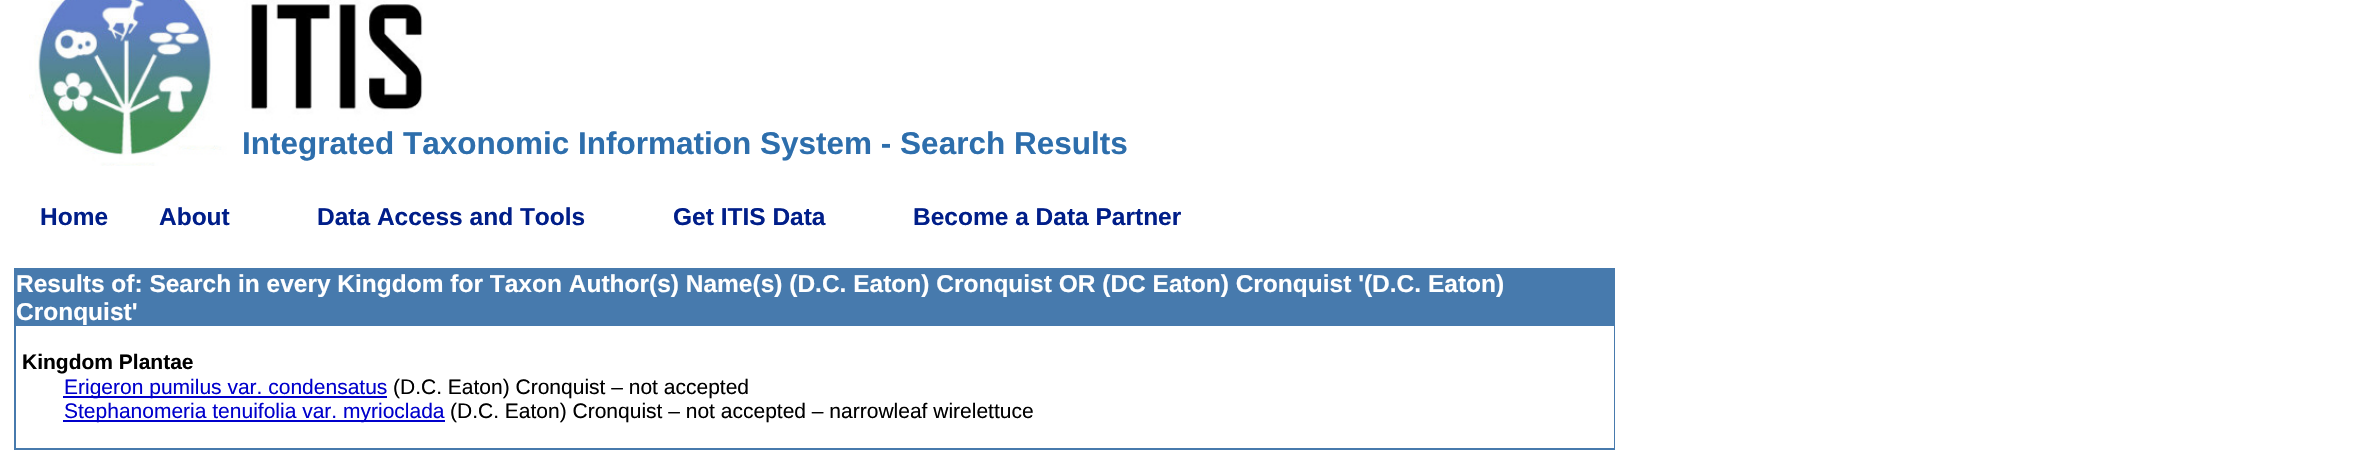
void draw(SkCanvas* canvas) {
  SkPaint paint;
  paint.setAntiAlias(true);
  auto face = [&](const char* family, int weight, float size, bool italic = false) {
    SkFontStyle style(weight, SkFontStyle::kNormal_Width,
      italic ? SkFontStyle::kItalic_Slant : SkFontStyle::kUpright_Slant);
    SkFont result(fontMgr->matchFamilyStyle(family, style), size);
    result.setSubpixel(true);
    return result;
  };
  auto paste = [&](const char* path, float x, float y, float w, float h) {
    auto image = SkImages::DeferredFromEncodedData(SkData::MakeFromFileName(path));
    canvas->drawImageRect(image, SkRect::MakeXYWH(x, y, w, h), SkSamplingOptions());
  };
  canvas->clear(0xffffffff);
  paste("img/1.png", 29, 0, 394, 166);
  {
    const struct { float x, y, w, h; SkColor color; } items[] = {
      {14, 268, 1601, 182, 0xff477aad},
      {16, 326, 1598, 122, 0xffffffff},
      {63, 396, 324, 2, 0xff0000cc},
      {63, 420, 382, 2, 0xff0000cc},
    };
    for (auto [x, y, w, h, color] : items) {
      paint.setColor(color);
      canvas->drawRect(SkRect::MakeXYWH(x, y, w, h), paint);
    }
  }
  auto f0 = face("Liberation Sans", 700, 31.5f);
  paint.setColor(0xff2d6eac);
  canvas->drawString("Integrated Taxonomic Information System - Search Results", 242, 154, f0, paint);
  auto f1 = face("Liberation Sans", 700, 24.5f);
  paint.setColor(0xff001e89);
  {
    const struct { const char* s; float x, y; } items[] = {
      {"Home", 40, 225},
      {"About", 159, 225},
      {"Data Access and Tools", 317, 225},
      {"Get ITIS Data", 673, 225},
      {"Become a Data Partner", 913, 225},
    };
    for (auto [s, x, y] : items) {
      canvas->drawString(s, x, y, f1, paint);
    }
  }
  paint.setColor(0xffffffff);
  canvas->drawString("Results of: Search in every Kingdom for Taxon Author(s) Name(s) (D.C. Eaton) Cronquist OR (DC Eaton) Cronquist '(D.C. Eaton)", 16, 292, f1, paint);
  canvas->drawString("Cronquist'", 16, 320, f1, paint);
  auto f2 = face("Liberation Sans", 700, 21);
  paint.setColor(0xff000000);
  canvas->drawString("Kingdom Plantae", 22, 369, f2, paint);
  auto f3 = face("Liberation Sans", 400, 21);
  paint.setColor(0xff0000cc);
  canvas->drawString("Erigeron pumilus var. condensatus", 64, 394, f3, paint);
  paint.setColor(0xff000000);
  canvas->drawString("(D.C. Eaton) Cronquist – not accepted", 393, 394, f3, paint);
  paint.setColor(0xff0000cc);
  canvas->drawString("Stephanomeria tenuifolia var. myrioclada", 64, 418, f3, paint);
  paint.setColor(0xff000000);
  canvas->drawString("(D.C. Eaton) Cronquist – not accepted – narrowleaf wirelettuce", 450, 418, f3, paint);
}
